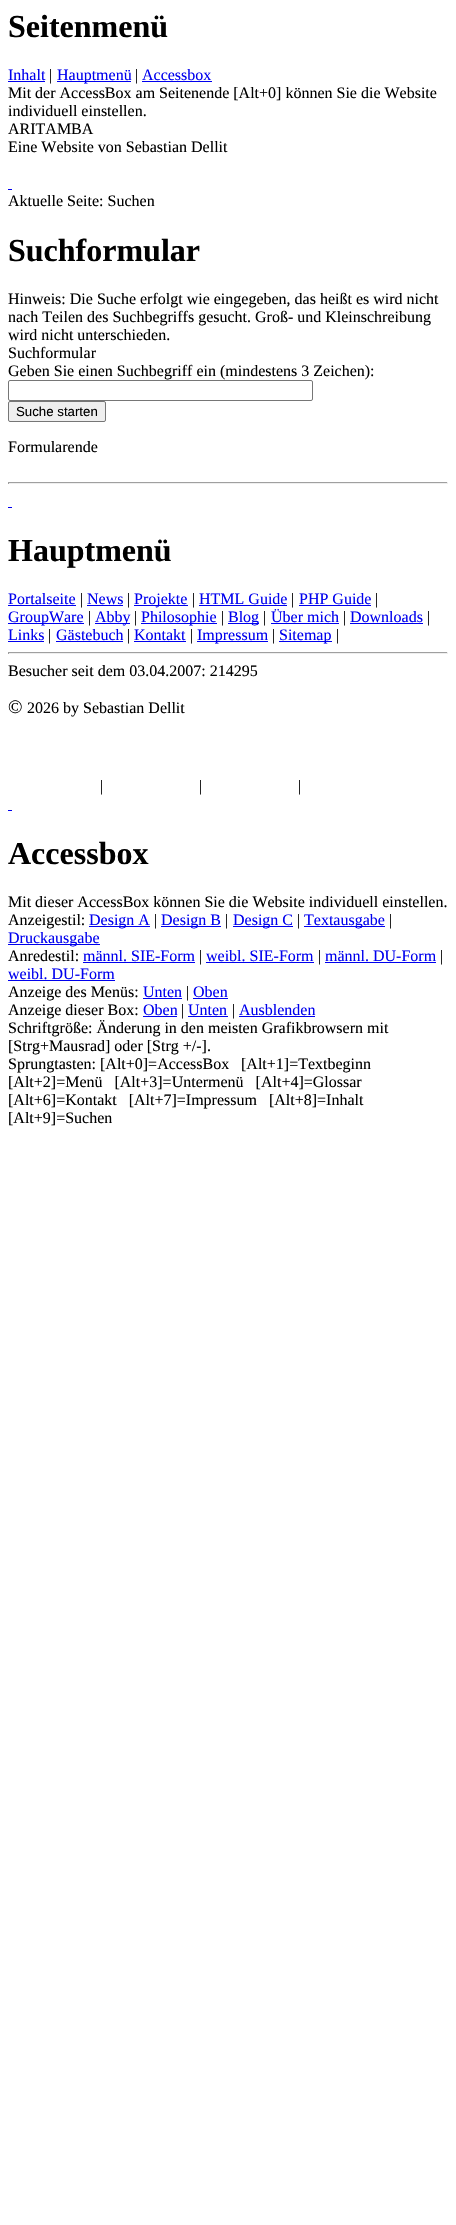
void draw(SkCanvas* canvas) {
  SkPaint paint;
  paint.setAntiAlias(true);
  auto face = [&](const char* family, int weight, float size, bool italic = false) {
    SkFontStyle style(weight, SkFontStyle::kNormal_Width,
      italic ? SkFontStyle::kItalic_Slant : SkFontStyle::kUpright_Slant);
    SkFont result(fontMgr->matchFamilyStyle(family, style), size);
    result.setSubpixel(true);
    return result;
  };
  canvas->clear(0xffffffff);
  {
    const struct { float x, y, w, h; SkColor color; } items[] = {
      {8, 81, 37, 1, 0xff0000ee},
      {57, 81, 74, 1, 0xff0000ee},
      {142, 81, 70, 1, 0xff0000ee},
      {8, 189, 4, 1, 0xff0000ee},
    };
    for (auto [x, y, w, h, color] : items) {
      paint.setColor(color);
      canvas->drawRect(SkRect::MakeXYWH(x, y, w, h), paint);
    }
  }
  paint.setStroke(true);
  paint.setStrokeWidth(1);
  paint.setColor(0xff767676);
  canvas->drawRoundRect(SkRect::MakeXYWH(8.5f, 380.5f, 304, 20), 1.5f, 1.5f, paint);
  paint.setStroke(false);
  paint.setColor(0xffefefef);
  canvas->drawRoundRect(SkRect::MakeXYWH(8.5f, 401.5f, 97, 20), 1.5f, 1.5f, paint);
  paint.setStroke(true);
  paint.setColor(0xff767676);
  canvas->drawRoundRect(SkRect::MakeXYWH(8.5f, 401.5f, 97, 20), 1.5f, 1.5f, paint);
  paint.setStroke(false);
  {
    const struct { float x, y, w, h; SkColor color; } items[] = {
      {8, 482, 440, 1, 0xff9f9f9f},
      {447, 482, 1, 2, 0xffeeeeee},
      {8, 483, 440, 1, 0xffeeeeee},
      {8, 482, 1, 2, 0xff9f9f9f},
      {8, 507, 4, 1, 0xff0000ee},
      {8, 605, 68, 1, 0xff0000ee},
      {87, 605, 36, 1, 0xff0000ee},
      {134, 605, 54, 1, 0xff0000ee},
      {199, 605, 88, 1, 0xff0000ee},
      {299, 605, 72, 1, 0xff0000ee},
      {8, 623, 76, 1, 0xff0000ee},
      {95, 623, 35, 1, 0xff0000ee},
      {141, 623, 76, 1, 0xff0000ee},
      {228, 623, 31, 1, 0xff0000ee},
      {271, 623, 68, 1, 0xff0000ee},
      {350, 623, 73, 1, 0xff0000ee},
      {8, 641, 36, 1, 0xff0000ee},
      {56, 641, 67, 1, 0xff0000ee},
      {134, 641, 52, 1, 0xff0000ee},
      {197, 641, 71, 1, 0xff0000ee},
      {279, 641, 53, 1, 0xff0000ee},
      {8, 652, 440, 1, 0xff9f9f9f},
      {447, 652, 1, 2, 0xffeeeeee},
      {8, 653, 440, 1, 0xffeeeeee},
      {8, 652, 1, 2, 0xff9f9f9f},
      {8, 810, 4, 1, 0xff0000ee},
      {89, 926, 61, 1, 0xff0000ee},
      {161, 926, 60, 1, 0xff0000ee},
      {233, 926, 60, 1, 0xff0000ee},
      {304, 926, 81, 1, 0xff0000ee},
      {8, 944, 92, 1, 0xff0000ee},
      {83, 962, 112, 1, 0xff0000ee},
      {206, 962, 108, 1, 0xff0000ee},
      {325, 962, 111, 1, 0xff0000ee},
      {8, 980, 107, 1, 0xff0000ee},
      {143, 998, 39, 1, 0xff0000ee},
      {193, 998, 35, 1, 0xff0000ee},
      {143, 1016, 34, 1, 0xff0000ee},
      {188, 1016, 40, 1, 0xff0000ee},
      {239, 1016, 76, 1, 0xff0000ee},
    };
    for (auto [x, y, w, h, color] : items) {
      paint.setColor(color);
      canvas->drawRect(SkRect::MakeXYWH(x, y, w, h), paint);
    }
  }
  auto f0 = face("Liberation Serif", 700, 32);
  paint.setColor(0xff000000);
  canvas->drawString("Seitenmenü", 8, 37, f0, paint);
  auto f1 = face("Liberation Serif", 400, 16);
  paint.setColor(0xff0000ee);
  canvas->drawString("Inhalt", 8, 80, f1, paint);
  paint.setColor(0xff000000);
  canvas->drawString("|", 49, 80, f1, paint);
  paint.setColor(0xff0000ee);
  canvas->drawString("Hauptmenü", 57, 80, f1, paint);
  paint.setColor(0xff000000);
  canvas->drawString("|", 135, 80, f1, paint);
  paint.setColor(0xff0000ee);
  canvas->drawString("Accessbox", 142, 80, f1, paint);
  paint.setColor(0xff000000);
  {
    const struct { const char* s; float x, y; } items[] = {
      {"Mit der AccessBox am Seitenende [Alt+0] können Sie die Website", 8, 98},
      {"individuell einstellen.", 8, 116},
      {"ARITAMBA", 8, 134},
      {"Eine Website von Sebastian Dellit", 8, 152},
      {"Aktuelle Seite: Suchen", 8, 206},
    };
    for (auto [s, x, y] : items) {
      canvas->drawString(s, x, y, f1, paint);
    }
  }
  canvas->drawString("Suchformular", 8, 261, f0, paint);
  {
    const struct { const char* s; float x, y; } items[] = {
      {"Hinweis: Die Suche erfolgt wie eingegeben, das heißt es wird nicht", 8, 304},
      {"nach Teilen des Suchbegriffs gesucht. Groß- und Kleinschreibung", 8, 322},
      {"wird nicht unterschieden.", 8, 340},
      {"Suchformular", 8, 358},
      {"Geben Sie einen Suchbegriff ein (mindestens 3 Zeichen):", 8, 376},
    };
    for (auto [s, x, y] : items) {
      canvas->drawString(s, x, y, f1, paint);
    }
  }
  auto f2 = face("Liberation Sans", 400, 13.25f);
  canvas->drawString("Suche starten", 16, 416, f2, paint);
  canvas->drawString("Formularende", 8, 452, f1, paint);
  canvas->drawString("Hauptmenü", 8, 561, f0, paint);
  paint.setColor(0xff0000ee);
  canvas->drawString("Portalseite", 8, 604, f1, paint);
  paint.setColor(0xff000000);
  canvas->drawString("|", 80, 604, f1, paint);
  paint.setColor(0xff0000ee);
  canvas->drawString("News", 87, 604, f1, paint);
  paint.setColor(0xff000000);
  canvas->drawString("|", 127, 604, f1, paint);
  paint.setColor(0xff0000ee);
  canvas->drawString("Projekte", 134, 604, f1, paint);
  paint.setColor(0xff000000);
  canvas->drawString("|", 192, 604, f1, paint);
  paint.setColor(0xff0000ee);
  canvas->drawString("HTML Guide", 199, 604, f1, paint);
  paint.setColor(0xff000000);
  canvas->drawString("|", 291, 604, f1, paint);
  paint.setColor(0xff0000ee);
  canvas->drawString("PHP Guide", 299, 604, f1, paint);
  paint.setColor(0xff000000);
  canvas->drawString("|", 375, 604, f1, paint);
  paint.setColor(0xff0000ee);
  canvas->drawString("GroupWare", 8, 622, f1, paint);
  paint.setColor(0xff000000);
  canvas->drawString("|", 88, 622, f1, paint);
  paint.setColor(0xff0000ee);
  canvas->drawString("Abby", 95, 622, f1, paint);
  paint.setColor(0xff000000);
  canvas->drawString("|", 134, 622, f1, paint);
  paint.setColor(0xff0000ee);
  canvas->drawString("Philosophie", 141, 622, f1, paint);
  paint.setColor(0xff000000);
  canvas->drawString("|", 221, 622, f1, paint);
  paint.setColor(0xff0000ee);
  canvas->drawString("Blog", 228, 622, f1, paint);
  paint.setColor(0xff000000);
  canvas->drawString("|", 263, 622, f1, paint);
  paint.setColor(0xff0000ee);
  canvas->drawString("Über mich", 271, 622, f1, paint);
  paint.setColor(0xff000000);
  canvas->drawString("|", 343, 622, f1, paint);
  paint.setColor(0xff0000ee);
  canvas->drawString("Downloads", 350, 622, f1, paint);
  paint.setColor(0xff000000);
  canvas->drawString("|", 427, 622, f1, paint);
  paint.setColor(0xff0000ee);
  canvas->drawString("Links", 8, 640, f1, paint);
  paint.setColor(0xff000000);
  canvas->drawString("|", 48, 640, f1, paint);
  paint.setColor(0xff0000ee);
  canvas->drawString("Gästebuch", 56, 640, f1, paint);
  paint.setColor(0xff000000);
  canvas->drawString("|", 127, 640, f1, paint);
  paint.setColor(0xff0000ee);
  canvas->drawString("Kontakt", 134, 640, f1, paint);
  paint.setColor(0xff000000);
  canvas->drawString("|", 190, 640, f1, paint);
  paint.setColor(0xff0000ee);
  canvas->drawString("Impressum", 197, 640, f1, paint);
  paint.setColor(0xff000000);
  canvas->drawString("|", 272, 640, f1, paint);
  paint.setColor(0xff0000ee);
  canvas->drawString("Sitemap", 279, 640, f1, paint);
  paint.setColor(0xff000000);
  canvas->drawString("|", 336, 640, f1, paint);
  canvas->drawString("Besucher seit dem 03.04.2007: 214295", 8, 676, f1, paint);
  auto f3 = face("Liberation Serif", 400, 19);
  canvas->drawString("©", 8, 713, f3, paint);
  {
    const struct { const char* s; float x, y; } items[] = {
      {"2026 by Sebastian Dellit", 27, 713},
      {"|", 100, 791},
      {"|", 199, 791},
      {"|", 298, 791},
    };
    for (auto [s, x, y] : items) {
      canvas->drawString(s, x, y, f1, paint);
    }
  }
  canvas->drawString("Accessbox", 8, 864, f0, paint);
  canvas->drawString("Mit dieser AccessBox können Sie die Website individuell einstellen.", 8, 907, f1, paint);
  canvas->drawString("Anzeigestil:", 8, 925, f1, paint);
  paint.setColor(0xff0000ee);
  canvas->drawString("Design A", 89, 925, f1, paint);
  paint.setColor(0xff000000);
  canvas->drawString("|", 154, 925, f1, paint);
  paint.setColor(0xff0000ee);
  canvas->drawString("Design B", 161, 925, f1, paint);
  paint.setColor(0xff000000);
  canvas->drawString("|", 225, 925, f1, paint);
  paint.setColor(0xff0000ee);
  canvas->drawString("Design C", 233, 925, f1, paint);
  paint.setColor(0xff000000);
  canvas->drawString("|", 297, 925, f1, paint);
  paint.setColor(0xff0000ee);
  canvas->drawString("Textausgabe", 304, 925, f1, paint);
  paint.setColor(0xff000000);
  canvas->drawString("|", 389, 925, f1, paint);
  paint.setColor(0xff0000ee);
  canvas->drawString("Druckausgabe", 8, 943, f1, paint);
  paint.setColor(0xff000000);
  canvas->drawString("Anredestil:", 8, 961, f1, paint);
  paint.setColor(0xff0000ee);
  canvas->drawString("männl. SIE-Form", 83, 961, f1, paint);
  paint.setColor(0xff000000);
  canvas->drawString("|", 199, 961, f1, paint);
  paint.setColor(0xff0000ee);
  canvas->drawString("weibl. SIE-Form", 206, 961, f1, paint);
  paint.setColor(0xff000000);
  canvas->drawString("|", 318, 961, f1, paint);
  paint.setColor(0xff0000ee);
  canvas->drawString("männl. DU-Form", 325, 961, f1, paint);
  paint.setColor(0xff000000);
  canvas->drawString("|", 440, 961, f1, paint);
  paint.setColor(0xff0000ee);
  canvas->drawString("weibl. DU-Form", 8, 979, f1, paint);
  paint.setColor(0xff000000);
  canvas->drawString("Anzeige des Menüs:", 8, 997, f1, paint);
  paint.setColor(0xff0000ee);
  canvas->drawString("Unten", 143, 997, f1, paint);
  paint.setColor(0xff000000);
  canvas->drawString("|", 186, 997, f1, paint);
  paint.setColor(0xff0000ee);
  canvas->drawString("Oben", 193, 997, f1, paint);
  paint.setColor(0xff000000);
  canvas->drawString("Anzeige dieser Box:", 8, 1015, f1, paint);
  paint.setColor(0xff0000ee);
  canvas->drawString("Oben", 143, 1015, f1, paint);
  paint.setColor(0xff000000);
  canvas->drawString("|", 181, 1015, f1, paint);
  paint.setColor(0xff0000ee);
  canvas->drawString("Unten", 188, 1015, f1, paint);
  paint.setColor(0xff000000);
  canvas->drawString("|", 232, 1015, f1, paint);
  paint.setColor(0xff0000ee);
  canvas->drawString("Ausblenden", 239, 1015, f1, paint);
  paint.setColor(0xff000000);
  {
    const struct { const char* s; float x, y; } items[] = {
      {"Schriftgröße: Änderung in den meisten Grafikbrowsern mit", 8, 1033},
      {"[Strg+Mausrad] oder [Strg +/-].", 8, 1051},
      {"Sprungtasten: [Alt+0]=AccessBox", 8, 1069},
      {"[Alt+1]=Textbeginn", 241, 1069},
      {"[Alt+2]=Menü   [Alt+3]=Untermenü   [Alt+4]=Glossar", 8, 1087},
      {"[Alt+6]=Kontakt   [Alt+7]=Impressum   [Alt+8]=Inhalt", 8, 1105},
      {"[Alt+9]=Suchen", 8, 1123},
    };
    for (auto [s, x, y] : items) {
      canvas->drawString(s, x, y, f1, paint);
    }
  }
}
